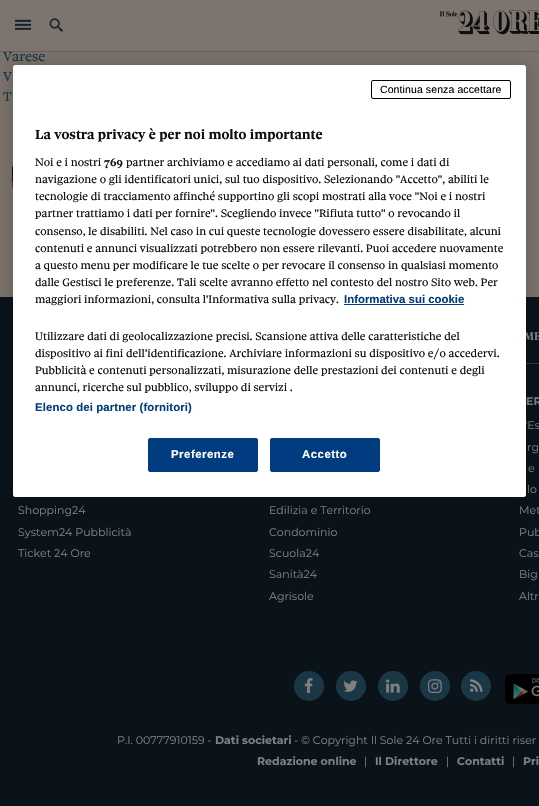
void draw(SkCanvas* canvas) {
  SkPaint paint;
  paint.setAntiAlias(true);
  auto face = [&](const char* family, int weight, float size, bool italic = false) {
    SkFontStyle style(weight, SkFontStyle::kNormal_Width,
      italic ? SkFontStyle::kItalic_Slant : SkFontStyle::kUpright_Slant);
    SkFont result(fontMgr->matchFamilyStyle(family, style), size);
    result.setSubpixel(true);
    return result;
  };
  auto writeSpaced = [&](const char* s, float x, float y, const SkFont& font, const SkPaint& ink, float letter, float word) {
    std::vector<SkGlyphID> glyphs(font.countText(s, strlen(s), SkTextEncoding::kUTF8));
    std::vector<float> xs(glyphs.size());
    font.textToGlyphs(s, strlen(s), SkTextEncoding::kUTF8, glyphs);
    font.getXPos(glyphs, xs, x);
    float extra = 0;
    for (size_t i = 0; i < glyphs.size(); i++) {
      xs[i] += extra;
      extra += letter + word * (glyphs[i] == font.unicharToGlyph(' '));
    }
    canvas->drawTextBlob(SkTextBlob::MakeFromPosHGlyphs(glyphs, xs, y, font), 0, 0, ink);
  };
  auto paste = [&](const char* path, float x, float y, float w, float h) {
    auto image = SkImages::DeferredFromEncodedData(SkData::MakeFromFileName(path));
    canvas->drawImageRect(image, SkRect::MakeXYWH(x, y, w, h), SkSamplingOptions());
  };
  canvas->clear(0xff7b736b);
  paint.setColor(0xff7c756f);
  canvas->drawRect(SkRect::MakeXYWH(0, 0, 539, 51), paint);
  paste("img/1.png", 15, 19, 16, 11);
  paste("img/2.png", 49, 18, 14, 14);
  paste("img/3.png", 439, 10, 100, 25);
  paste("img/4.png", 12, 166, 1, 22);
  paint.setColor(0xff091319);
  canvas->drawRect(SkRect::MakeXYWH(0, 297, 539, 509), paint);
  paint.setColor(0xff2d3941);
  canvas->drawRect(SkRect::MakeXYWH(526, 363, 13, 1), paint);
  paint.setColor(0xff1b3745);
  canvas->drawCircle(309, 686, 15, paint);
  paste("img/5.png", 304, 678, 9, 15);
  canvas->drawCircle(351, 686, 15, paint);
  paste("img/6.png", 343, 680, 15, 12);
  canvas->drawCircle(393, 686, 15, paint);
  paste("img/7.png", 386, 679, 14, 14);
  canvas->drawCircle(435, 686, 15, paint);
  paste("img/8.png", 428, 679, 14, 14);
  canvas->drawCircle(476, 686, 15, paint);
  paste("img/9.png", 470, 679, 13, 13);
  paste("img/10.png", 505, 674, 34, 30);
  auto f0 = face("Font", 400, 14);
  canvas->drawString("Varese", 3, 61, f0, paint);
  paint.setColor(0xff696058);
  canvas->drawRect(SkRect::MakeXYWH(0, 51, 539, 1), paint);
  paint.setColor(0xff1b3745);
  canvas->drawString("V", 3, 81, f0, paint);
  canvas->drawString("T", 3, 101, f0, paint);
  auto f1 = face("Font", 700, 12);
  paint.setColor(0xff808080);
  canvas->drawString("ME", 524, 340, f1, paint);
  auto f2 = face("Montserrat", 400, 11);
  {
    const struct { const char* s; float x, y; } items[] = {
      {"Shopping24", 18, 514},
      {"System24 Pubblicità", 18, 536},
      {"Ticket 24 Ore", 18, 557},
      {"Edilizia e Territorio", 269, 514},
      {"Condominio", 269, 536},
      {"Scuola24", 269, 557},
      {"Sanità24", 269, 578},
      {"Agrisole", 269, 600},
    };
    for (auto [s, x, y] : items) {
      canvas->drawString(s, x, y, f2, paint);
    }
  }
  auto f3 = face("Montserrat", 700, 11);
  canvas->drawString("ER", 526, 405, f3, paint);
  {
    const struct { const char* s; float x, y; } items[] = {
      {"'Es", 525, 429},
      {"rg", 527, 451},
      {"e", 528, 472},
      {"lo", 527, 493},
      {"Met", 519, 514},
      {"Pub", 519, 536},
      {"Cas", 519, 557},
      {"Big", 519, 578},
      {"Altr", 519, 600},
      {"P.I. 00777910159 -", 117, 744},
    };
    for (auto [s, x, y] : items) {
      canvas->drawString(s, x, y, f2, paint);
    }
  }
  canvas->drawString("Dati societari", 215, 744, f3, paint);
  canvas->drawString("- © Copyright Il Sole 24 Ore Tutti i diritti riser", 294, 744, f2, paint);
  canvas->drawString("Redazione online", 257, 765, f3, paint);
  canvas->drawString("|", 364, 765, f2, paint);
  canvas->drawString("Il Direttore", 375, 765, f3, paint);
  canvas->drawString("|", 446, 765, f2, paint);
  canvas->drawString("Contatti", 457, 765, f3, paint);
  canvas->drawString("|", 512, 765, f2, paint);
  canvas->drawString("Pri", 523, 765, f3, paint);
  paint.setColor(0x33000000);
  paint.setMaskFilter(SkMaskFilter::MakeBlur(kNormal_SkBlurStyle, 9));
  canvas->drawRoundRect(SkRect::MakeXYWH(13, 65, 513, 432), 2.5f, 2.5f, paint);
  paint.setMaskFilter(nullptr);
  paint.setColor(0xffffffff);
  canvas->drawRoundRect(SkRect::MakeXYWH(13, 65, 513, 432), 2.5f, 2.5f, paint);
  paint.setStroke(true);
  paint.setStrokeWidth(1);
  paint.setColor(0xff000000);
  canvas->drawRoundRect(SkRect::MakeXYWH(371.5f, 80.5f, 139, 18), 1.5f, 1.5f, paint);
  auto f4 = face("Liberation Sans", 400, 10.5f);
  paint.setStroke(false);
  writeSpaced("Continua senza accettare", 380, 93, f4, paint, 0.1f, 0);
  auto f5 = face("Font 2", 700, 14);
  paint.setColor(0xff0f0f0f);
  canvas->drawString("La vostra privacy è per noi molto importante", 35, 139, f5, paint);
  auto f6 = face("Font", 400, 11.4f);
  canvas->drawString("Noi e i nostri", 35, 166, f6, paint);
  auto f7 = face("Font 2", 700, 11.4f);
  canvas->drawString("769", 104, 166, f7, paint);
  {
    const struct { const char* s; float x, y; } items[] = {
      {"partner archiviamo e accediamo ai dati personali, come i dati di", 126, 166},
      {"navigazione o gli identificatori unici, sul tuo dispositivo. Selezionando \"Accetto\", abiliti le", 35, 183},
      {"tecnologie di tracciamento affinché supportino gli scopi mostrati alla voce \"Noi e i nostri", 35, 200},
      {"partner trattiamo i dati per fornire\". Scegliendo invece \"Rifiuta tutto\" o revocando il", 35, 217},
      {"consenso, le disabiliti. Nel caso in cui queste tecnologie dovessero essere disabilitate, alcuni", 35, 235},
      {"contenuti e annunci visualizzati potrebbero non essere rilevanti. Puoi accedere nuovamente", 35, 252},
      {"a questo menu per modificare le tue scelte o per revocare il consenso in qualsiasi momento", 35, 269},
      {"dalle Gestisci le preferenze. Tali scelte avranno effetto nel contesto del nostro Sito web. Per", 35, 286},
      {"maggiori informazioni, consulta l'Informativa sulla privacy.", 35, 303},
    };
    for (auto [s, x, y] : items) {
      canvas->drawString(s, x, y, f6, paint);
    }
  }
  auto f8 = face("Liberation Sans", 700, 11.4f);
  paint.setColor(0xff003c7f);
  canvas->drawString("Informativa sui cookie", 344, 303, f8, paint);
  canvas->drawRect(SkRect::MakeXYWH(344, 304, 120, 1), paint);
  paint.setColor(0xff0f0f0f);
  {
    const struct { const char* s; float x, y; } items[] = {
      {"Utilizzare dati di geolocalizzazione precisi. Scansione attiva delle caratteristiche del", 35, 340},
      {"dispositivo ai fini dell’identificazione. Archiviare informazioni su dispositivo e/o accedervi.", 35, 357},
      {"Pubblicità e contenuti personalizzati, misurazione delle prestazioni dei contenuti e degli", 35, 374},
      {"annunci, ricerche sul pubblico, sviluppo di servizi .", 35, 391},
    };
    for (auto [s, x, y] : items) {
      canvas->drawString(s, x, y, f6, paint);
    }
  }
  paint.setColor(0xff003c7f);
  writeSpaced("Elenco dei partner (fornitori)", 35, 411, f8, paint, 0.1f, 0);
  canvas->drawRoundRect(SkRect::MakeXYWH(148.5f, 438.5f, 109, 33), 1.5f, 1.5f, paint);
  paint.setStroke(true);
  canvas->drawRoundRect(SkRect::MakeXYWH(148.5f, 438.5f, 109, 33), 1.5f, 1.5f, paint);
  paint.setStroke(false);
  paint.setColor(0xffffffff);
  writeSpaced("Preferenze", 171, 458, f8, paint, 0.5f, 0);
  paint.setColor(0xff003c7f);
  canvas->drawRoundRect(SkRect::MakeXYWH(270.5f, 438.5f, 109, 33), 1.5f, 1.5f, paint);
  paint.setStroke(true);
  canvas->drawRoundRect(SkRect::MakeXYWH(270.5f, 438.5f, 109, 33), 1.5f, 1.5f, paint);
  paint.setStroke(false);
  paint.setColor(0xffffffff);
  writeSpaced("Accetto", 302, 458, f8, paint, 0.5f, 0);
}
